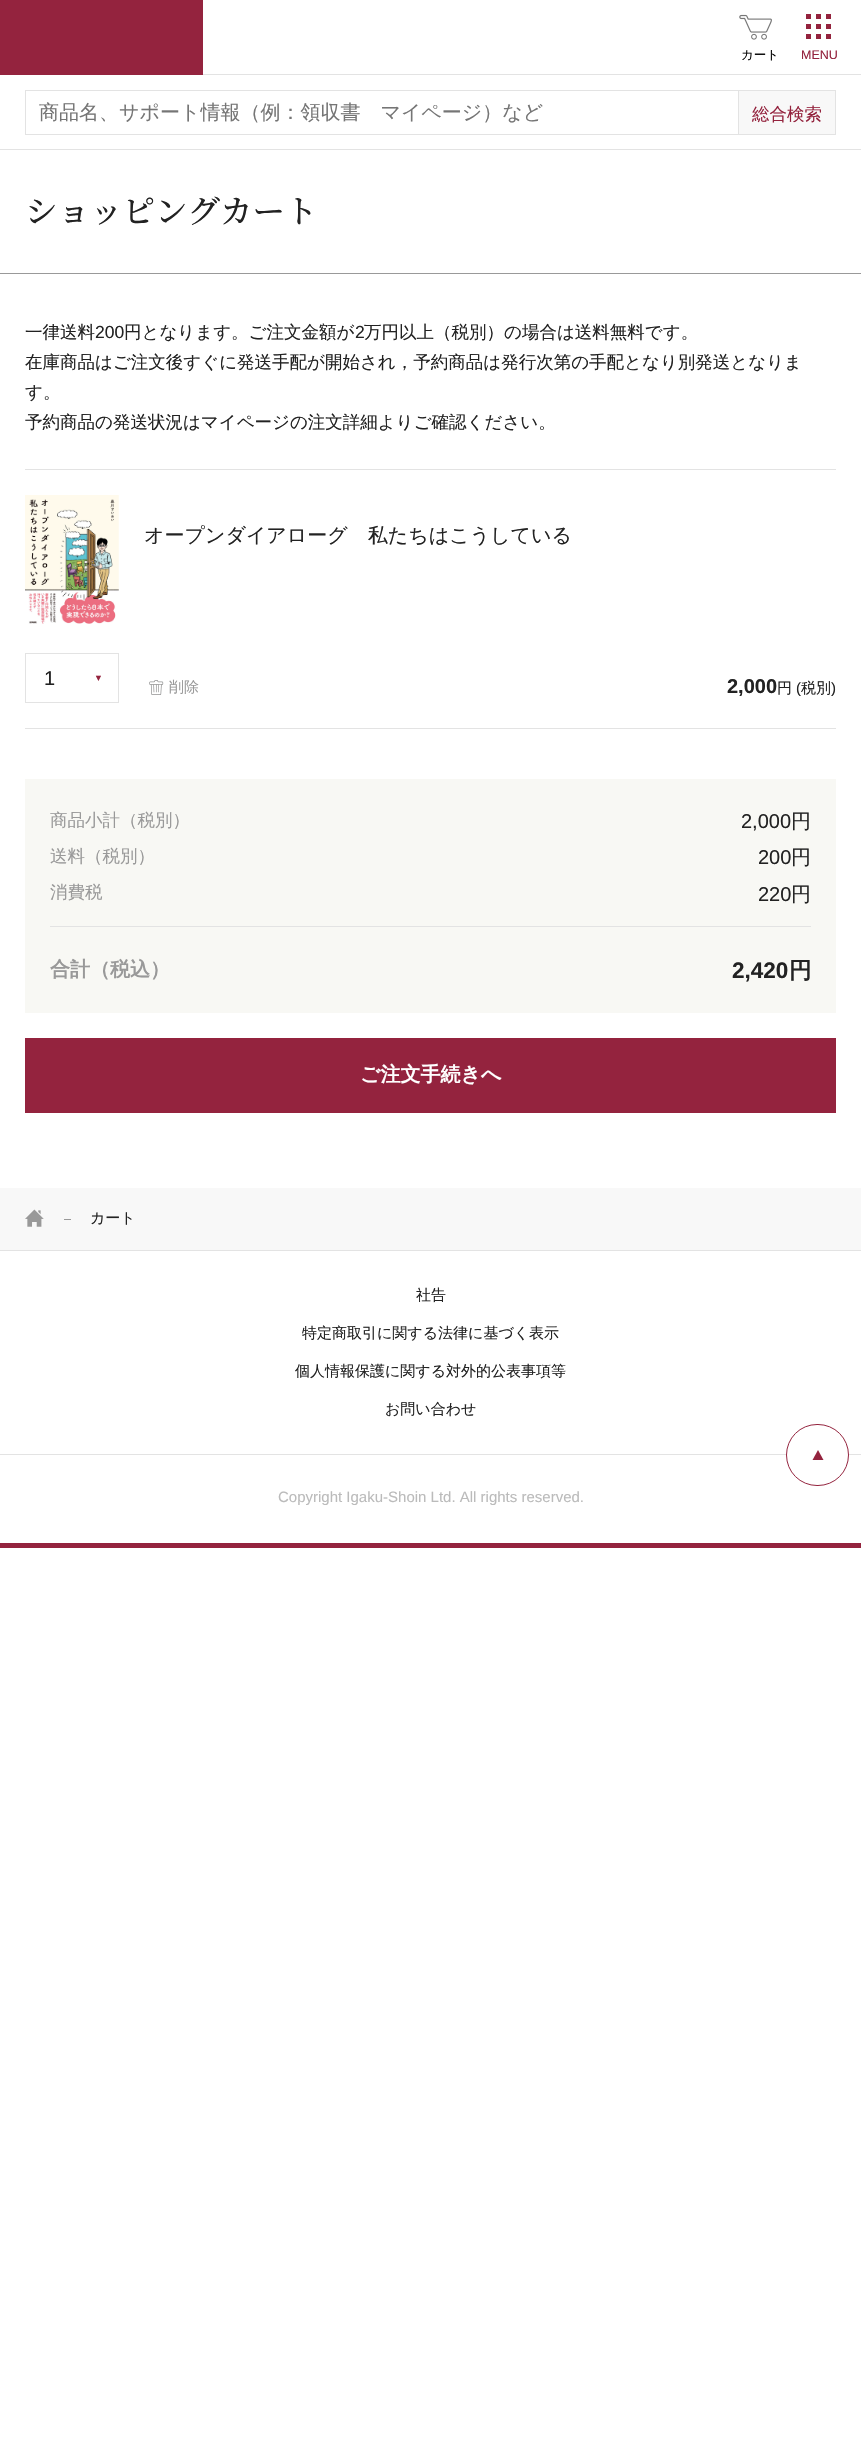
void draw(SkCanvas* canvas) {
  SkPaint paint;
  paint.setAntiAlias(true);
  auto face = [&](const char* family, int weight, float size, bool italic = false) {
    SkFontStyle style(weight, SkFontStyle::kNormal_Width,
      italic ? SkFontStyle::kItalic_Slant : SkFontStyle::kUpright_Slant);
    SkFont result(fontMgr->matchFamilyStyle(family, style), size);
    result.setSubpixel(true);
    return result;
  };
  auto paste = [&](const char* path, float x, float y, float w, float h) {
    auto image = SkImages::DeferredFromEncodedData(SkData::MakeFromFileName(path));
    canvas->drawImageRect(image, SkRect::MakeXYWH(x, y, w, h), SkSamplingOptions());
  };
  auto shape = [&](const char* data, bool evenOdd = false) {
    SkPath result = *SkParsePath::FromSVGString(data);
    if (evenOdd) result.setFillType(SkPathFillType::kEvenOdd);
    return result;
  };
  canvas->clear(0xffffffff);
  paint.setColor(0xffe3e3e3);
  canvas->drawRect(SkRect::MakeXYWH(0, 149, 861, 1), paint);
  paint.setColor(0xff94233e);
  canvas->drawRect(SkRect::MakeXYWH(0, 0, 203, 75), paint);
  paste("img/1.png", 739, 14, 33, 26);
  {
    const struct { float x, y, w, h; SkColor color; } items[] = {
      {203, 74, 658, 1, 0xffe3e3e3},
      {25, 90, 713, 1, 0xffe3e3e3},
      {25, 134, 713, 1, 0xffe3e3e3},
      {25, 90, 1, 45, 0xffe3e3e3},
    };
    for (auto [x, y, w, h, color] : items) {
      paint.setColor(color);
      canvas->drawRect(SkRect::MakeXYWH(x, y, w, h), paint);
    }
  }
  paint.setColor(0xfff8f8f8);
  canvas->drawRect(SkRect::MakeXYWH(738.5f, 90.5f, 97, 44), paint);
  paint.setStroke(true);
  paint.setStrokeWidth(1);
  paint.setColor(0xffe3e3e3);
  canvas->drawRect(SkRect::MakeXYWH(738.5f, 90.5f, 97, 44), paint);
  paste("img/2.png", 806, 14, 25, 25);
  paint.setStroke(false);
  {
    const struct { float x, y, w, h; SkColor color; } items[] = {
      {0, 273, 861, 1, 0xff999999},
      {25, 469, 811, 1, 0xffe3e3e3},
      {25, 728, 811, 1, 0xffe3e3e3},
    };
    for (auto [x, y, w, h, color] : items) {
      paint.setColor(color);
      canvas->drawRect(SkRect::MakeXYWH(x, y, w, h), paint);
    }
  }
  paste("img/3.png", 25, 495, 94, 129);
  paint.setStroke(true);
  canvas->drawRect(SkRect::MakeXYWH(25.5f, 653.5f, 93, 49), paint);
  paste("img/4.png", 149, 680, 15, 15);
  paint.setStroke(false);
  {
    const struct { float x, y, w, h; SkColor color; } items[] = {
      {25, 779, 811, 234, 0xfff8f8f4},
      {50, 926, 761, 1, 0xffe3e3e3},
      {25, 1038, 811, 75, 0xff94233e},
      {0, 1188, 861, 62, 0xfff8f8f8},
    };
    for (auto [x, y, w, h, color] : items) {
      paint.setColor(color);
      canvas->drawRect(SkRect::MakeXYWH(x, y, w, h), paint);
    }
  }
  paste("img/5.png", 25, 1209, 19, 18);
  {
    const struct { float x, y, w, h; SkColor color; } items[] = {
      {64, 1219, 7, 1, 0xff999999},
      {0, 1250, 861, 1, 0xffe3e3e3},
      {0, 1543, 861, 5, 0xff94233e},
      {0, 1454, 861, 1, 0xffe3e3e3},
    };
    for (auto [x, y, w, h, color] : items) {
      paint.setColor(color);
      canvas->drawRect(SkRect::MakeXYWH(x, y, w, h), paint);
    }
  }
  paint.setColor(0xffffffff);
  canvas->drawRoundRect(SkRect::MakeXYWH(786, 1424, 63, 62), 31, 31, paint);
  paint.setColor(0xff94233e);
  canvas->drawPath(shape("M818 1450L823.5 1460H812.5Z", true), paint);
  paint.setStroke(true);
  canvas->drawRoundRect(SkRect::MakeXYWH(786.5f, 1424.5f, 62, 61), 30.5f, 30.5f, paint);
  auto f0 = face("WenQuanYi Zen Hei", 500, 12.5f);
  paint.setStroke(false);
  paint.setColor(0xff000000);
  canvas->drawString("カート", 741, 59, f0, paint);
  auto f1 = face("WenQuanYi Zen Hei", 500, 20);
  paint.setColor(0xff757575);
  canvas->drawString("商品名、サポート情報（例：領収書　マイページ）など", 39, 119, f1, paint);
  auto f2 = face("WenQuanYi Zen Hei", 500, 17.5f);
  paint.setColor(0xff94233e);
  canvas->drawString("総合検索", 752, 120, f2, paint);
  auto f3 = face("Liberation Sans", 400, 12.5f);
  canvas->drawString("MENU", 801, 59, f3, paint);
  auto f4 = face("Noto Serif JP", 500, 32.5f);
  paint.setColor(0xff222222);
  canvas->drawString("ショッピングカート", 25, 223, f4, paint);
  canvas->drawString("一律送料", 25, 338, f2, paint);
  auto f5 = face("Liberation Sans", 400, 17.5f);
  canvas->drawString("200", 95, 338, f5, paint);
  canvas->drawString("円となります。ご注文金額が", 124, 338, f2, paint);
  canvas->drawString("2", 355, 338, f5, paint);
  {
    const struct { const char* s; float x, y; } items[] = {
      {"万円以上（税別）の場合は送料無料です。", 364, 338},
      {"在庫商品はご注文後すぐに発送手配が開始され，予約商品は発行次第の手配となり別発送となりま", 25, 368},
      {"す。", 25, 398},
      {"予約商品の発送状況はマイページの注文詳細よりご確認ください。", 25, 428},
    };
    for (auto [s, x, y] : items) {
      canvas->drawString(s, x, y, f2, paint);
    }
  }
  canvas->drawString("オープンダイアローグ　私たちはこうしている", 144, 542, f1, paint);
  auto f6 = face("Liberation Sans", 400, 20);
  canvas->drawString("1", 44, 685, f6, paint);
  auto f7 = face("Liberation Sans", 400, 9);
  paint.setColor(0xff94233e);
  canvas->drawString("▼", 94, 681, f7, paint);
  auto f8 = face("WenQuanYi Zen Hei", 500, 15);
  paint.setColor(0xff999999);
  canvas->drawString("削除", 169, 692, f8, paint);
  auto f9 = face("Liberation Sans", 700, 20);
  paint.setColor(0xff222222);
  canvas->drawString("2,000", 727, 693, f9, paint);
  canvas->drawString("円", 777, 693, f8, paint);
  auto f10 = face("Liberation Sans", 400, 15);
  canvas->drawString("(", 796, 693, f10, paint);
  canvas->drawString("税別", 801, 693, f8, paint);
  canvas->drawString(")", 831, 693, f10, paint);
  paint.setColor(0xff999999);
  canvas->drawString("商品小計（税別）", 50, 826, f2, paint);
  paint.setColor(0xff222222);
  canvas->drawString("2,000", 741, 828, f6, paint);
  canvas->drawString("円", 791, 828, f1, paint);
  paint.setColor(0xff999999);
  canvas->drawString("送料（税別）", 50, 862, f2, paint);
  paint.setColor(0xff222222);
  canvas->drawString("200", 758, 864, f6, paint);
  canvas->drawString("円", 791, 864, f1, paint);
  paint.setColor(0xff999999);
  canvas->drawString("消費税", 50, 898, f2, paint);
  paint.setColor(0xff222222);
  canvas->drawString("220", 758, 901, f6, paint);
  canvas->drawString("円", 791, 901, f1, paint);
  auto f11 = face("WenQuanYi Zen Hei", 700, 20);
  paint.setColor(0xff999999);
  canvas->drawString("合計（税込）", 50, 976, f11, paint);
  auto f12 = face("Liberation Sans", 700, 22.5f);
  paint.setColor(0xff222222);
  canvas->drawString("2,420", 732, 978, f12, paint);
  auto f13 = face("WenQuanYi Zen Hei", 700, 22.5f);
  canvas->drawString("円", 789, 978, f13, paint);
  paint.setColor(0xffffffff);
  canvas->drawString("ご注文手続きへ", 360, 1081, f11, paint);
  paint.setColor(0xff222222);
  {
    const struct { const char* s; float x, y; } items[] = {
      {"カート", 90, 1223},
      {"社告", 416, 1300},
      {"特定商取引に関する法律に基づく表示", 302, 1338},
      {"個人情報保護に関する対外的公表事項等", 295, 1376},
      {"お問い合わせ", 385, 1414},
    };
    for (auto [s, x, y] : items) {
      canvas->drawString(s, x, y, f8, paint);
    }
  }
  paint.setColor(0xffbbbbbb);
  canvas->drawString("Copyright Igaku-Shoin Ltd. All rights reserved.", 278, 1502, f10, paint);
}
